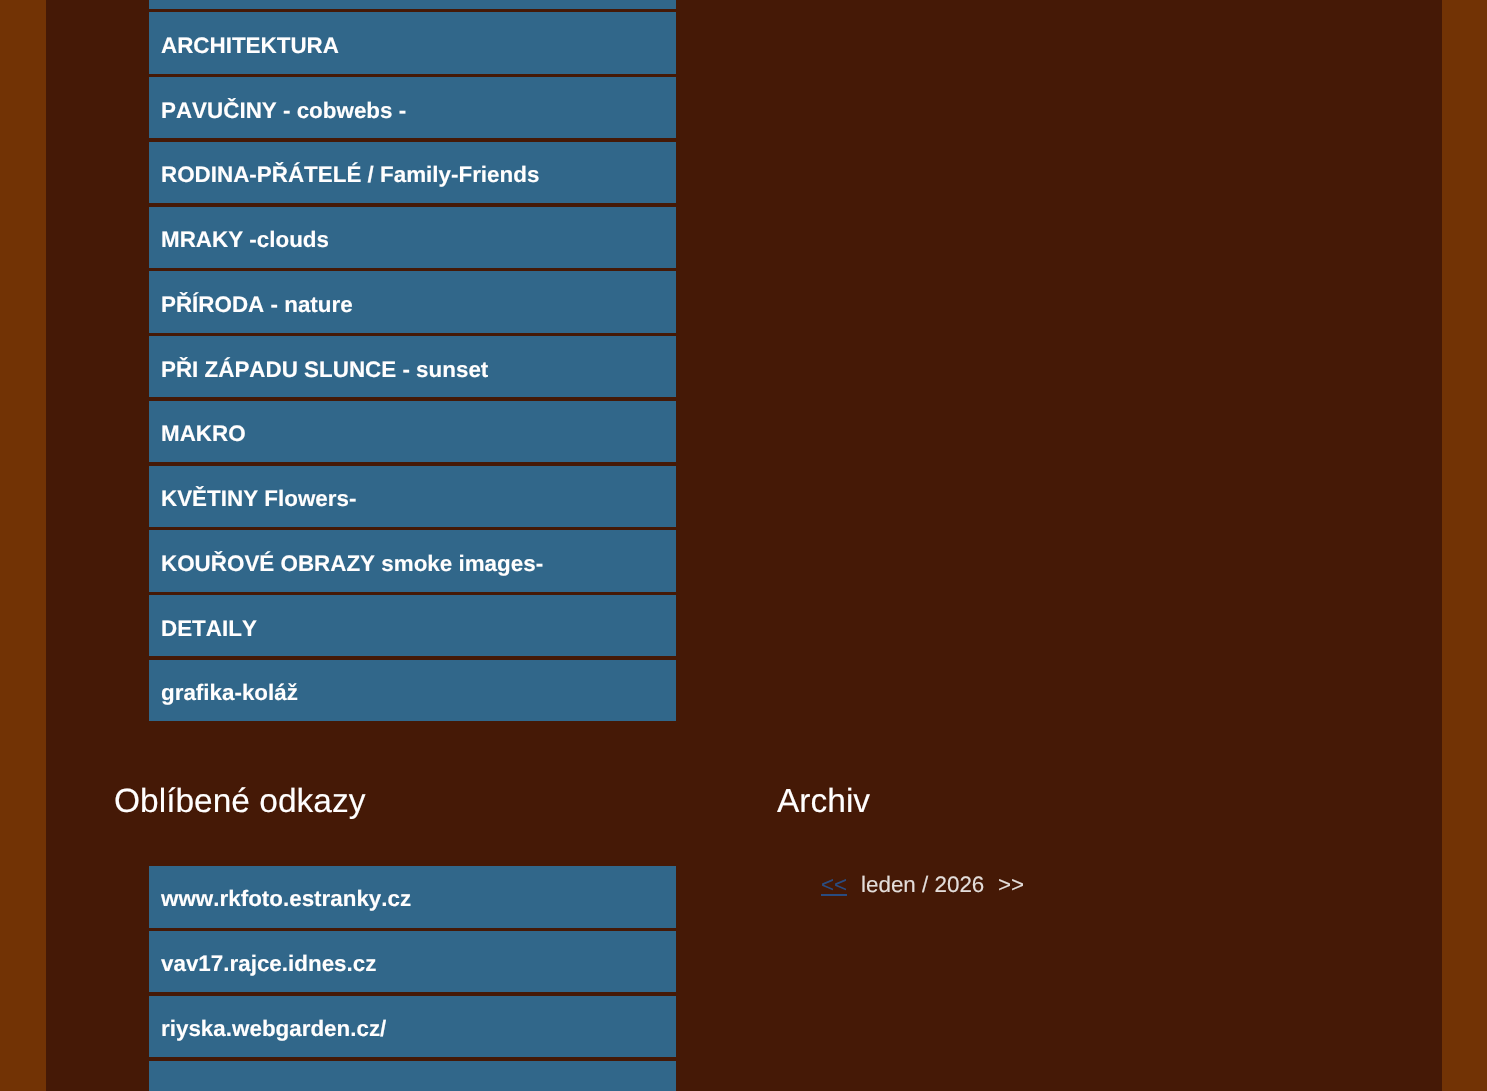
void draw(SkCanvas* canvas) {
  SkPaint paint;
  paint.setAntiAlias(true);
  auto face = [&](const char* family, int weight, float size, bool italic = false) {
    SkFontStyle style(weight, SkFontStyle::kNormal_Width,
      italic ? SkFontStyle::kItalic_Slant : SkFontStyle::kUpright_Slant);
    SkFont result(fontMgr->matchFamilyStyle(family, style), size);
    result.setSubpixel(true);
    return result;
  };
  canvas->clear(0xff723305);
  {
    const struct { float x, y, w, h; SkColor color; } items[] = {
      {46, 0, 1396, 1091, 0xff451906},
      {149, 0, 527, 9, 0xff31678a},
      {149, 12, 527, 62, 0xff31678a},
      {149, 77, 527, 61, 0xff31678a},
      {149, 142, 527, 61, 0xff31678a},
      {149, 207, 527, 61, 0xff31678a},
      {149, 271, 527, 62, 0xff31678a},
      {149, 336, 527, 61, 0xff31678a},
      {149, 401, 527, 61, 0xff31678a},
      {149, 466, 527, 61, 0xff31678a},
      {149, 530, 527, 62, 0xff31678a},
      {149, 595, 527, 61, 0xff31678a},
      {149, 660, 527, 61, 0xff31678a},
      {149, 866, 527, 62, 0xff31678a},
      {149, 931, 527, 61, 0xff31678a},
      {149, 996, 527, 61, 0xff31678a},
      {149, 1061, 527, 30, 0xff31678a},
      {821, 894, 26, 2, 0xff294c81},
    };
    for (auto [x, y, w, h, color] : items) {
      paint.setColor(color);
      canvas->drawRect(SkRect::MakeXYWH(x, y, w, h), paint);
    }
  }
  auto f0 = face("Liberation Sans", 700, 22.4f);
  paint.setColor(0xfffffefe);
  {
    const struct { const char* s; float x, y; } items[] = {
      {"ARCHITEKTURA", 161, 53},
      {"PAVUČINY - cobwebs -", 161, 118},
      {"RODINA-PŘÁTELÉ / Family-Friends", 161, 182},
      {"MRAKY -clouds", 161, 247},
      {"PŘÍRODA - nature", 161, 312},
      {"PŘI ZÁPADU SLUNCE - sunset", 161, 377},
      {"MAKRO", 161, 441},
      {"KVĚTINY Flowers-", 161, 506},
      {"KOUŘOVÉ OBRAZY smoke images-", 161, 571},
      {"DETAILY", 161, 636},
      {"grafika-koláž", 161, 700},
    };
    for (auto [s, x, y] : items) {
      canvas->drawString(s, x, y, f0, paint);
    }
  }
  auto f1 = face("Liberation Sans", 400, 33.5f);
  canvas->drawString("Oblíbené odkazy", 114, 812, f1, paint);
  {
    const struct { const char* s; float x, y; } items[] = {
      {"www.rkfoto.estranky.cz", 161, 906},
      {"vav17.rajce.idnes.cz", 161, 971},
      {"riyska.webgarden.cz/", 161, 1036},
    };
    for (auto [s, x, y] : items) {
      canvas->drawString(s, x, y, f0, paint);
    }
  }
  canvas->drawString("Archiv", 777, 812, f1, paint);
  auto f2 = face("Liberation Sans", 400, 22.4f);
  paint.setColor(0xff294c81);
  canvas->drawString("<<", 821, 892, f2, paint);
  paint.setColor(0xffe3ddda);
  canvas->drawString("leden / 2026", 861, 892, f2, paint);
  canvas->drawString(">>", 998, 892, f2, paint);
}
